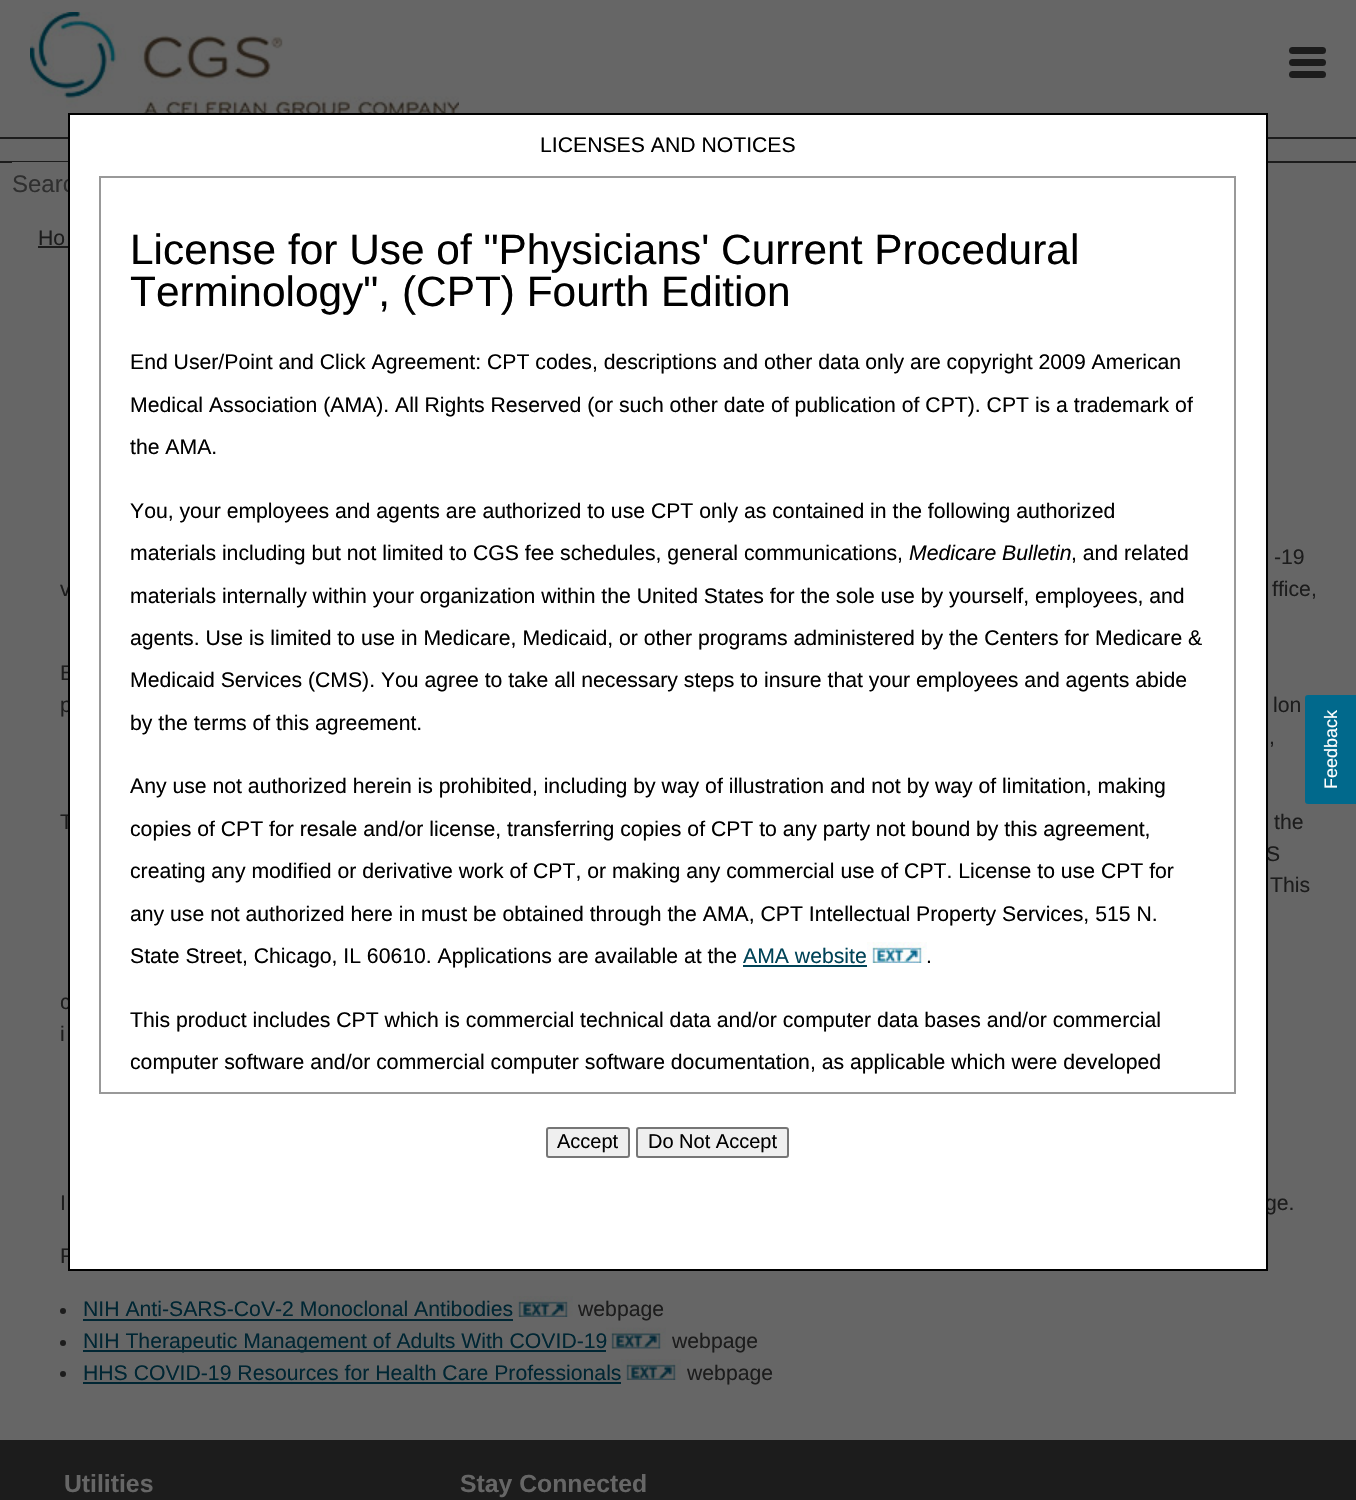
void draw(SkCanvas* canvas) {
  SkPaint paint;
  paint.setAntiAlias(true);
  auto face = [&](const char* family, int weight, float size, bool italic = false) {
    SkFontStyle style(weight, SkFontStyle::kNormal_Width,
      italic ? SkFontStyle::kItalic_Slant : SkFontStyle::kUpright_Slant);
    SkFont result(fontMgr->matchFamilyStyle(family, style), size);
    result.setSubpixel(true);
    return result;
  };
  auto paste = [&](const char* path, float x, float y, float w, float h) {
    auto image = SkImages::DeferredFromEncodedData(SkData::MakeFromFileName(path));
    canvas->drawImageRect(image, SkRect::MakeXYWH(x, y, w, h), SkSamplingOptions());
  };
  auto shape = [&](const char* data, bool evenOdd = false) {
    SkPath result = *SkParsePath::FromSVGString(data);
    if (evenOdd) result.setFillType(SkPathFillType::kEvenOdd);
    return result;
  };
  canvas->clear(0xff666666);
  paste("img/1.png", 30, 12, 429, 104);
  paint.setColor(0xff1c1c1c);
  canvas->drawRoundRect(SkRect::MakeXYWH(1289, 47, 37, 7), 3.5f, 3.5f, paint);
  canvas->drawRoundRect(SkRect::MakeXYWH(1289, 59, 37, 7), 3.5f, 3.5f, paint);
  canvas->drawRoundRect(SkRect::MakeXYWH(1289, 71, 37, 7), 3.5f, 3.5f, paint);
  {
    const struct { float x, y, w, h; SkColor color; } items[] = {
      {0, 137, 1356, 2, 0xff1c1c1c},
      {0, 161, 1356, 2, 0xff1c1c1c},
      {12, 162, 56, 1, 0xff666666},
      {38, 246, 30, 2, 0xff1c1c1c},
    };
    for (auto [x, y, w, h, color] : items) {
      paint.setColor(color);
      canvas->drawRect(SkRect::MakeXYWH(x, y, w, h), paint);
    }
  }
  canvas->drawCircle(63, 1311, 3, paint);
  paint.setColor(0xff002633);
  canvas->drawRect(SkRect::MakeXYWH(83, 1319, 430, 2), paint);
  paste("img/3.png", 513, 1296, 60, 21);
  paint.setColor(0xff1c1c1c);
  canvas->drawCircle(63, 1343, 3, paint);
  paint.setColor(0xff002633);
  canvas->drawRect(SkRect::MakeXYWH(83, 1350, 523, 2), paint);
  paste("img/4.png", 606, 1327, 60, 22);
  paint.setColor(0xff1c1c1c);
  canvas->drawCircle(63, 1374, 3, paint);
  paint.setColor(0xff002633);
  canvas->drawRect(SkRect::MakeXYWH(83, 1382, 538, 2), paint);
  paste("img/5.png", 621, 1359, 60, 21);
  paint.setColor(0xff01698c);
  canvas->drawPath(shape("M1356 804H1308C1306 804 1305 803 1305 801V698C1305 696 1306 695 1308 695H1356Z"), paint);
  paint.setColor(0xff1c1c1c);
  canvas->drawRect(SkRect::MakeXYWH(0, 1440, 1356, 60), paint);
  auto f0 = face("Liberation Sans", 400, 24);
  paint.setColor(0xff2f2f2f);
  canvas->drawString("Searc", 12, 192, f0, paint);
  auto f1 = face("Liberation Sans", 400, 21.2f);
  paint.setColor(0xff1c1c1c);
  {
    const struct { const char* s; float x, y; } items[] = {
      {"Ho", 38, 245},
      {"-19", 1274, 564},
      {"v", 60, 596},
      {"ffice,", 1272, 596},
      {"E", 60, 680},
      {"p", 60, 712},
      {"lon", 1273, 712},
      {",", 1269, 744},
      {"T", 60, 829},
      {"the", 1274, 829},
      {"S", 1266, 861},
      {"This", 1270, 892},
      {"c", 60, 1009},
      {"i", 60, 1041},
      {"I", 60, 1210},
      {"ge.", 1265, 1210},
      {"F", 60, 1263},
    };
    for (auto [s, x, y] : items) {
      canvas->drawString(s, x, y, f1, paint);
    }
  }
  paint.setColor(0xffffffff);
  canvas->drawRect(SkRect::MakeXYWH(69, 114, 1198, 1156), paint);
  paint.setStroke(true);
  paint.setStrokeWidth(2);
  paint.setColor(0xff000000);
  canvas->drawRect(SkRect::MakeXYWH(69, 114, 1198, 1156), paint);
  paint.setStroke(false);
  paint.setColor(0xffefefef);
  canvas->drawRoundRect(SkRect::MakeXYWH(637, 1128, 151, 29), 2, 2, paint);
  paint.setStroke(true);
  paint.setColor(0xff767676);
  canvas->drawRoundRect(SkRect::MakeXYWH(637, 1128, 151, 29), 2, 2, paint);
  auto f2 = face("Liberation Sans", 400, 20);
  paint.setStroke(false);
  paint.setColor(0xff000000);
  canvas->drawString("Do Not Accept", 648, 1148, f2, paint);
  paint.setColor(0xffefefef);
  canvas->drawRoundRect(SkRect::MakeXYWH(547, 1128, 82, 29), 2, 2, paint);
  paint.setStroke(true);
  paint.setColor(0xff767676);
  canvas->drawRoundRect(SkRect::MakeXYWH(547, 1128, 82, 29), 2, 2, paint);
  paint.setStroke(false);
  paint.setColor(0xff000000);
  canvas->drawString("Accept", 557, 1148, f2, paint);
  paint.setStroke(true);
  paint.setColor(0xff999999);
  canvas->drawRect(SkRect::MakeXYWH(100, 177, 1135, 916), paint);
  paint.setStroke(false);
  paint.setColor(0xff000000);
  {
    const struct { const char* s; float x, y; } items[] = {
      {"computer software and/or commercial computer software documentation, as applicable which were developed", 130, 1069},
      {"This product includes CPT which is commercial technical data and/or computer data bases and/or commercial", 130, 1027},
      {".", 926, 963},
    };
    for (auto [s, x, y] : items) {
      canvas->drawString(s, x, y, f1, paint);
    }
  }
  paste("img/2.png", 867, 942, 60, 21);
  paint.setColor(0xff004357);
  canvas->drawString("AMA website", 743, 963, f1, paint);
  canvas->drawRect(SkRect::MakeXYWH(743, 965, 124, 2), paint);
  paint.setColor(0xff000000);
  {
    const struct { const char* s; float x, y; } items[] = {
      {"State Street, Chicago, IL 60610. Applications are available at the", 130, 963},
      {"any use not authorized here in must be obtained through the AMA, CPT Intellectual Property Services, 515 N.", 130, 921},
      {"creating any modified or derivative work of CPT, or making any commercial use of CPT. License to use CPT for", 130, 878},
      {"copies of CPT for resale and/or license, transferring copies of CPT to any party not bound by this agreement,", 130, 836},
      {"Any use not authorized herein is prohibited, including by way of illustration and not by way of limitation, making", 130, 793},
      {"by the terms of this agreement.", 130, 730},
      {"Medicaid Services (CMS). You agree to take all necessary steps to insure that your employees and agents abide", 130, 687},
      {"agents. Use is limited to use in Medicare, Medicaid, or other programs administered by the Centers for Medicare &", 130, 645},
      {"materials internally within your organization within the United States for the sole use by yourself, employees, and", 130, 603},
      {", and related", 1071, 560},
    };
    for (auto [s, x, y] : items) {
      canvas->drawString(s, x, y, f1, paint);
    }
  }
  auto f3 = face("Liberation Sans", 400, 21.2f, true);
  canvas->drawString("Medicare Bulletin", 909, 560, f3, paint);
  {
    const struct { const char* s; float x, y; } items[] = {
      {"materials including but not limited to CGS fee schedules, general communications,", 130, 560},
      {"You, your employees and agents are authorized to use CPT only as contained in the following authorized", 130, 518},
      {"the AMA.", 130, 454},
      {"Medical Association (AMA). All Rights Reserved (or such other date of publication of CPT). CPT is a trademark of", 130, 412},
      {"End User/Point and Click Agreement: CPT codes, descriptions and other data only are copyright 2009 American", 130, 369},
    };
    for (auto [s, x, y] : items) {
      canvas->drawString(s, x, y, f1, paint);
    }
  }
  auto f4 = face("Liberation Sans", 400, 42.4f);
  canvas->drawString("Terminology\", (CPT) Fourth Edition", 130, 306, f4, paint);
  canvas->drawString("License for Use of \"Physicians' Current Procedural", 130, 264, f4, paint);
  canvas->drawString("LICENSES AND NOTICES", 540, 152, f1, paint);
  paint.setColor(0xff002633);
  canvas->drawString("NIH Anti-SARS-CoV-2 Monoclonal Antibodies", 83, 1316, f1, paint);
  paint.setColor(0xff1c1c1c);
  canvas->drawString("webpage", 578, 1316, f1, paint);
  paint.setColor(0xff002633);
  canvas->drawString("NIH Therapeutic Management of Adults With COVID-19", 83, 1348, f1, paint);
  paint.setColor(0xff1c1c1c);
  canvas->drawString("webpage", 672, 1348, f1, paint);
  paint.setColor(0xff002633);
  canvas->drawString("HHS COVID-19 Resources for Health Care Professionals", 83, 1380, f1, paint);
  paint.setColor(0xff1c1c1c);
  canvas->drawString("webpage", 687, 1380, f1, paint);
  auto f5 = face("Liberation Sans", 400, 18);
  paint.setColor(0xffffffff);
  canvas->save();
  canvas->rotate(-90, 1337, 789);
  canvas->drawString("Feedback", 1337, 789, f5, paint);
  canvas->restore();
  auto f6 = face("Liberation Sans", 700, 24.75f);
  paint.setColor(0xff666666);
  canvas->drawString("Utilities", 64, 1492, f6, paint);
  canvas->drawString("Stay Connected", 460, 1492, f6, paint);
}
